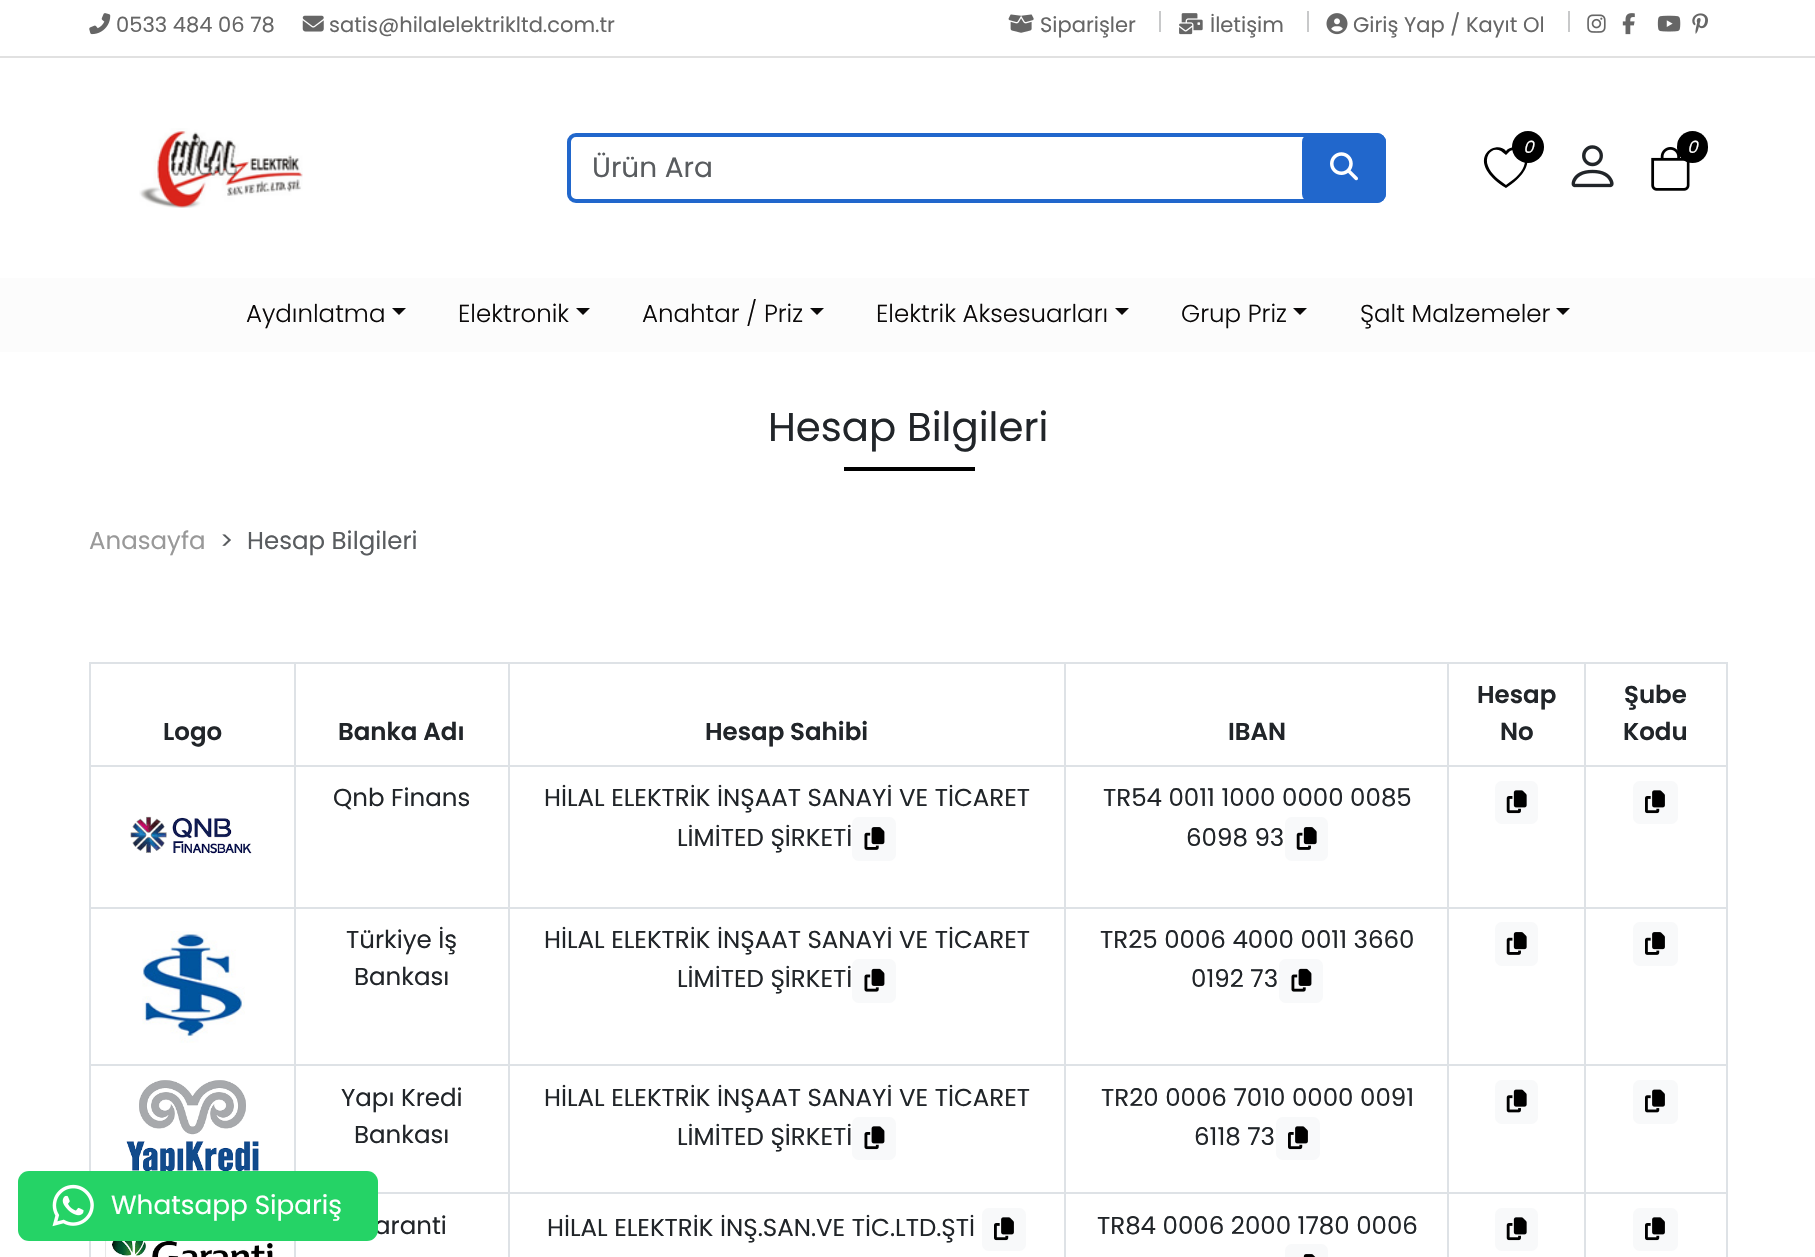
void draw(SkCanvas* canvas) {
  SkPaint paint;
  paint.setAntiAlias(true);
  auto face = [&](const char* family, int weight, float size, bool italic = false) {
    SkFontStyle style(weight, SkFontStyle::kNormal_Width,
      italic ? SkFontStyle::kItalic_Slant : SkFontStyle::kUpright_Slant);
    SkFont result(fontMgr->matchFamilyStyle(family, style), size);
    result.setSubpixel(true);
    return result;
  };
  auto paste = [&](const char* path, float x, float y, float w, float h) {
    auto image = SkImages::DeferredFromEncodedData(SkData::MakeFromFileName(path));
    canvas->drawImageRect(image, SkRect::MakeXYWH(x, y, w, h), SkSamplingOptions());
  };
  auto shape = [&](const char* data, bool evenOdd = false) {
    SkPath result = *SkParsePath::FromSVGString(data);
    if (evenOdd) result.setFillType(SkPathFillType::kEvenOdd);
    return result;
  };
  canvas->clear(0xffffffff);
  paint.setColor(0xffe1e1e1);
  canvas->drawRect(SkRect::MakeXYWH(0, 56, 1815, 2), paint);
  paste("img/1.png", 89, 13, 22, 22);
  paste("img/2.png", 302, 15, 22, 17);
  paste("img/3.png", 1008, 14, 26, 19);
  paint.setColor(0xffc8c9ca);
  canvas->drawRect(SkRect::MakeXYWH(1159, 11, 2, 21), paint);
  paste("img/4.png", 1179, 13, 24, 22);
  canvas->drawRect(SkRect::MakeXYWH(1307, 11, 2, 21), paint);
  paste("img/5.png", 1326, 13, 22, 22);
  canvas->drawRect(SkRect::MakeXYWH(1568, 11, 2, 21), paint);
  paste("img/6.png", 1587, 14, 19, 19);
  paste("img/7.png", 1622, 13, 13, 22);
  paste("img/8.png", 1657, 15, 24, 17);
  paste("img/9.png", 1692, 13, 16, 21);
  paste("img/10.png", 139, 128, 164, 80);
  paint.setColor(0xff000000);
  canvas->drawPath(shape("M1506 155L1501 151C1492 146 1484 156 1488 166C1491 174 1499 180 1506 185C1513 180 1521 174 1524 166C1528 156 1520 146 1510 151ZM1506 188C1462 160 1496 138 1506 151C1516 138 1549 160 1506 188Z"), paint);
  canvas->drawCircle(1528, 147, 16, paint);
  paste("img/11.png", 1571, 145, 43, 43);
  paste("img/12.png", 1651, 147, 39, 44);
  canvas->drawRoundRect(SkRect::MakeXYWH(1677, 131, 31, 32), 15.5f, 15.5f, paint);
  paint.setStroke(true);
  paint.setStrokeWidth(4);
  paint.setColor(0xff2167cc);
  canvas->drawRoundRect(SkRect::MakeXYWH(569, 135, 815, 66), 7, 7, paint);
  paint.setStroke(false);
  canvas->drawRoundRect(SkRect::MakeXYWH(1302, 133, 84, 70), 9, 9, paint);
  paste("img/13.png", 1330, 152, 28, 29);
  paint.setColor(0xfffcfcfc);
  canvas->drawRect(SkRect::MakeXYWH(0, 278, 1815, 74), paint);
  paint.setColor(0xff0b0909);
  canvas->drawPath(shape("M392 308H406L399 315Z"), paint);
  canvas->drawPath(shape("M576 308H590L583 315Z"), paint);
  canvas->drawPath(shape("M810 308H824L817 315Z"), paint);
  canvas->drawPath(shape("M1115 308H1129L1122 315Z"), paint);
  canvas->drawPath(shape("M1293 308H1307L1300 315Z"), paint);
  canvas->drawPath(shape("M1556 308H1570L1563 315Z"), paint);
  {
    const struct { float x, y, w, h; SkColor color; } items[] = {
      {844, 467, 131, 4, 0xff000000},
      {89, 662, 1638, 2, 0xffdee2e6},
      {89, 765, 1638, 2, 0xffdee2e6},
    };
    for (auto [x, y, w, h, color] : items) {
      paint.setColor(color);
      canvas->drawRect(SkRect::MakeXYWH(x, y, w, h), paint);
    }
  }
  paste("img/14.png", 130, 816, 122, 38);
  paint.setColor(0xfff8f9fa);
  canvas->drawRoundRect(SkRect::MakeXYWH(852, 817, 44, 44), 7, 7, paint);
  paste("img/15.png", 864, 827, 21, 23);
  canvas->drawRoundRect(SkRect::MakeXYWH(1285, 817, 43, 44), 7, 7, paint);
  paste("img/16.png", 1296, 827, 21, 23);
  canvas->drawRoundRect(SkRect::MakeXYWH(1495, 781, 43, 43), 7, 7, paint);
  paste("img/17.png", 1506, 790, 21, 24);
  canvas->drawRoundRect(SkRect::MakeXYWH(1633, 781, 45, 43), 7, 7, paint);
  paste("img/18.png", 1645, 790, 20, 24);
  paint.setColor(0xffdee2e6);
  canvas->drawRect(SkRect::MakeXYWH(89, 907, 1638, 2), paint);
  paste("img/19.png", 142, 931, 103, 112);
  paint.setColor(0xfff8f9fa);
  canvas->drawRoundRect(SkRect::MakeXYWH(852, 959, 44, 44), 7, 7, paint);
  paste("img/20.png", 864, 968, 21, 24);
  canvas->drawRoundRect(SkRect::MakeXYWH(1279, 959, 44, 44), 7, 7, paint);
  paste("img/20.png", 1291, 968, 21, 24);
  canvas->drawRoundRect(SkRect::MakeXYWH(1495, 922, 43, 44), 7, 7, paint);
  paste("img/16.png", 1506, 932, 21, 23);
  canvas->drawRoundRect(SkRect::MakeXYWH(1633, 922, 45, 44), 7, 7, paint);
  paste("img/21.png", 1645, 932, 20, 23);
  paint.setColor(0xffdee2e6);
  canvas->drawRect(SkRect::MakeXYWH(89, 1064, 1638, 2), paint);
  canvas->drawRect(SkRect::MakeXYWH(89, 662, 2, 509), paint);
  paste("img/22.png", 126, 1080, 133, 91);
  canvas->drawRect(SkRect::MakeXYWH(294, 662, 2, 509), paint);
  paint.setColor(0xfff8f9fa);
  canvas->drawRoundRect(SkRect::MakeXYWH(852, 1117, 44, 43), 7, 7, paint);
  paste("img/23.png", 864, 1126, 21, 24);
  canvas->drawRoundRect(SkRect::MakeXYWH(1276, 1117, 44, 43), 7, 7, paint);
  paste("img/18.png", 1288, 1126, 20, 24);
  canvas->drawRoundRect(SkRect::MakeXYWH(1495, 1080, 43, 44), 7, 7, paint);
  paste("img/24.png", 1506, 1089, 21, 24);
  canvas->drawRoundRect(SkRect::MakeXYWH(1633, 1080, 45, 44), 7, 7, paint);
  paste("img/25.png", 1645, 1089, 20, 24);
  {
    const struct { float x, y, w, h; SkColor color; } items[] = {
      {378, 1192, 1349, 2, 0xffdee2e6},
      {294, 1241, 2, 16, 0xffdee2e6},
      {508, 662, 2, 595, 0xffdee2e6},
    };
    for (auto [x, y, w, h, color] : items) {
      paint.setColor(color);
      canvas->drawRect(SkRect::MakeXYWH(x, y, w, h), paint);
    }
  }
  paint.setColor(0xfff8f9fa);
  canvas->drawRoundRect(SkRect::MakeXYWH(982, 1208, 44, 43), 7, 7, paint);
  paste("img/18.png", 994, 1217, 20, 24);
  paint.setColor(0xffdee2e6);
  canvas->drawRect(SkRect::MakeXYWH(1064, 662, 2, 595), paint);
  paint.setColor(0xfff8f9fa);
  canvas->drawRoundRect(SkRect::MakeXYWH(1285, 1244, 43, 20), 7, 7, paint);
  paste("img/26.png", 1303, 1254, 13, 3);
  paint.setColor(0xffdee2e6);
  canvas->drawRect(SkRect::MakeXYWH(1447, 662, 2, 595), paint);
  paint.setColor(0xfff8f9fa);
  canvas->drawRoundRect(SkRect::MakeXYWH(1495, 1208, 43, 43), 7, 7, paint);
  paste("img/17.png", 1506, 1217, 21, 24);
  paint.setColor(0xffdee2e6);
  canvas->drawRect(SkRect::MakeXYWH(1726, 662, 2, 595), paint);
  canvas->drawRect(SkRect::MakeXYWH(1584, 662, 2, 595), paint);
  paint.setColor(0xfff8f9fa);
  canvas->drawRoundRect(SkRect::MakeXYWH(1633, 1208, 45, 43), 7, 7, paint);
  paste("img/18.png", 1645, 1217, 20, 24);
  paint.setColor(0xffdee2e6);
  canvas->drawRect(SkRect::MakeXYWH(89, 1241, 2, 16), paint);
  paste("img/27.png", 105, 1241, 175, 16);
  auto f0 = face("Poppins", 400, 21);
  paint.setColor(0xff666666);
  {
    const struct { const char* s; float x, y; } items[] = {
      {"0533 484 06 78", 116, 32},
      {"satis@hilalelektrikltd.com.tr", 329, 32},
      {"Siparişler", 1040, 32},
      {"İletişim", 1210, 32},
      {"Giriş Yap / Kayıt Ol", 1353, 32},
    };
    for (auto [s, x, y] : items) {
      canvas->drawString(s, x, y, f0, paint);
    }
  }
  auto f1 = face("Poppins", 400, 17, true);
  paint.setColor(0xffffffff);
  canvas->drawString("0", 1523, 153, f1, paint);
  canvas->drawString("0", 1687, 153, f1, paint);
  auto f2 = face("Poppins", 400, 28);
  paint.setColor(0xff595c5f);
  canvas->drawString("Ürün Ara", 592, 177, f2, paint);
  auto f3 = face("Poppins", 300, 24.5f);
  paint.setColor(0xff0b0909);
  {
    const struct { const char* s; float x, y; } items[] = {
      {"Aydınlatma", 246, 322},
      {"Elektronik", 458, 322},
      {"Anahtar / Priz", 642, 322},
      {"Elektrik Aksesuarları", 876, 322},
      {"Grup Priz", 1181, 322},
      {"Şalt Malzemeler", 1360, 322},
    };
    for (auto [s, x, y] : items) {
      canvas->drawString(s, x, y, f3, paint);
    }
  }
  auto f4 = face("Poppins", 400, 40.25f);
  paint.setColor(0xff212529);
  canvas->drawString("Hesap Bilgileri", 768, 441, f4, paint);
  auto f5 = face("Poppins", 400, 24.5f);
  paint.setColor(0xff999999);
  canvas->drawString("Anasayfa", 89, 549, f5, paint);
  paint.setColor(0xff595c5f);
  canvas->drawString(">", 220, 549, f5, paint);
  canvas->drawString("Hesap Bilgileri", 247, 549, f5, paint);
  auto f6 = face("Poppins", 600, 24.5f);
  paint.setColor(0xff212529);
  {
    const struct { const char* s; float x, y; } items[] = {
      {"Logo", 163, 740},
      {"Banka Adı", 338, 740},
      {"Hesap Sahibi", 705, 740},
      {"IBAN", 1228, 740},
      {"Hesap", 1477, 703},
      {"No", 1500, 740},
      {"Şube", 1624, 703},
      {"Kodu", 1623, 740},
    };
    for (auto [s, x, y] : items) {
      canvas->drawString(s, x, y, f6, paint);
    }
  }
  {
    const struct { const char* s; float x, y; } items[] = {
      {"Qnb Finans", 333, 806},
      {"HİLAL ELEKTRİK İNŞAAT SANAYİ VE TİCARET", 544, 806},
      {"LİMİTED ŞİRKETİ", 677, 846},
      {"TR54 0011 1000 0000 0085", 1103, 806},
      {"6098 93", 1186, 846},
      {"Türkiye İş", 346, 948},
      {"Bankası", 354, 985},
      {"HİLAL ELEKTRİK İNŞAAT SANAYİ VE TİCARET", 544, 948},
      {"LİMİTED ŞİRKETİ", 677, 987},
      {"TR25 0006 4000 0011 3660", 1100, 948},
      {"0192 73", 1191, 987},
      {"Yapı Kredi", 341, 1106},
      {"Bankası", 354, 1143},
      {"HİLAL ELEKTRİK İNŞAAT SANAYİ VE TİCARET", 544, 1106},
      {"LİMİTED ŞİRKETİ", 677, 1145},
      {"TR20 0006 7010 0000 0091", 1101, 1106},
      {"6118 73", 1194, 1145},
      {"aranti", 374, 1234},
      {"HİLAL ELEKTRİK İNŞ.SAN.VE TİC.LTD.ŞTİ", 547, 1236},
      {"TR84 0006 2000 1780 0006", 1097, 1234},
    };
    for (auto [s, x, y] : items) {
      canvas->drawString(s, x, y, f5, paint);
    }
  }
  paint.setColor(0xff25d366);
  canvas->drawRoundRect(SkRect::MakeXYWH(18, 1171, 360, 70), 11, 11, paint);
  paste("img/28.png", 52, 1184, 42, 43);
  auto f7 = face("Poppins", 400, 26.25f);
  paint.setColor(0xffffffff);
  canvas->drawString("Whatsapp Sipariş", 111, 1214, f7, paint);
}
